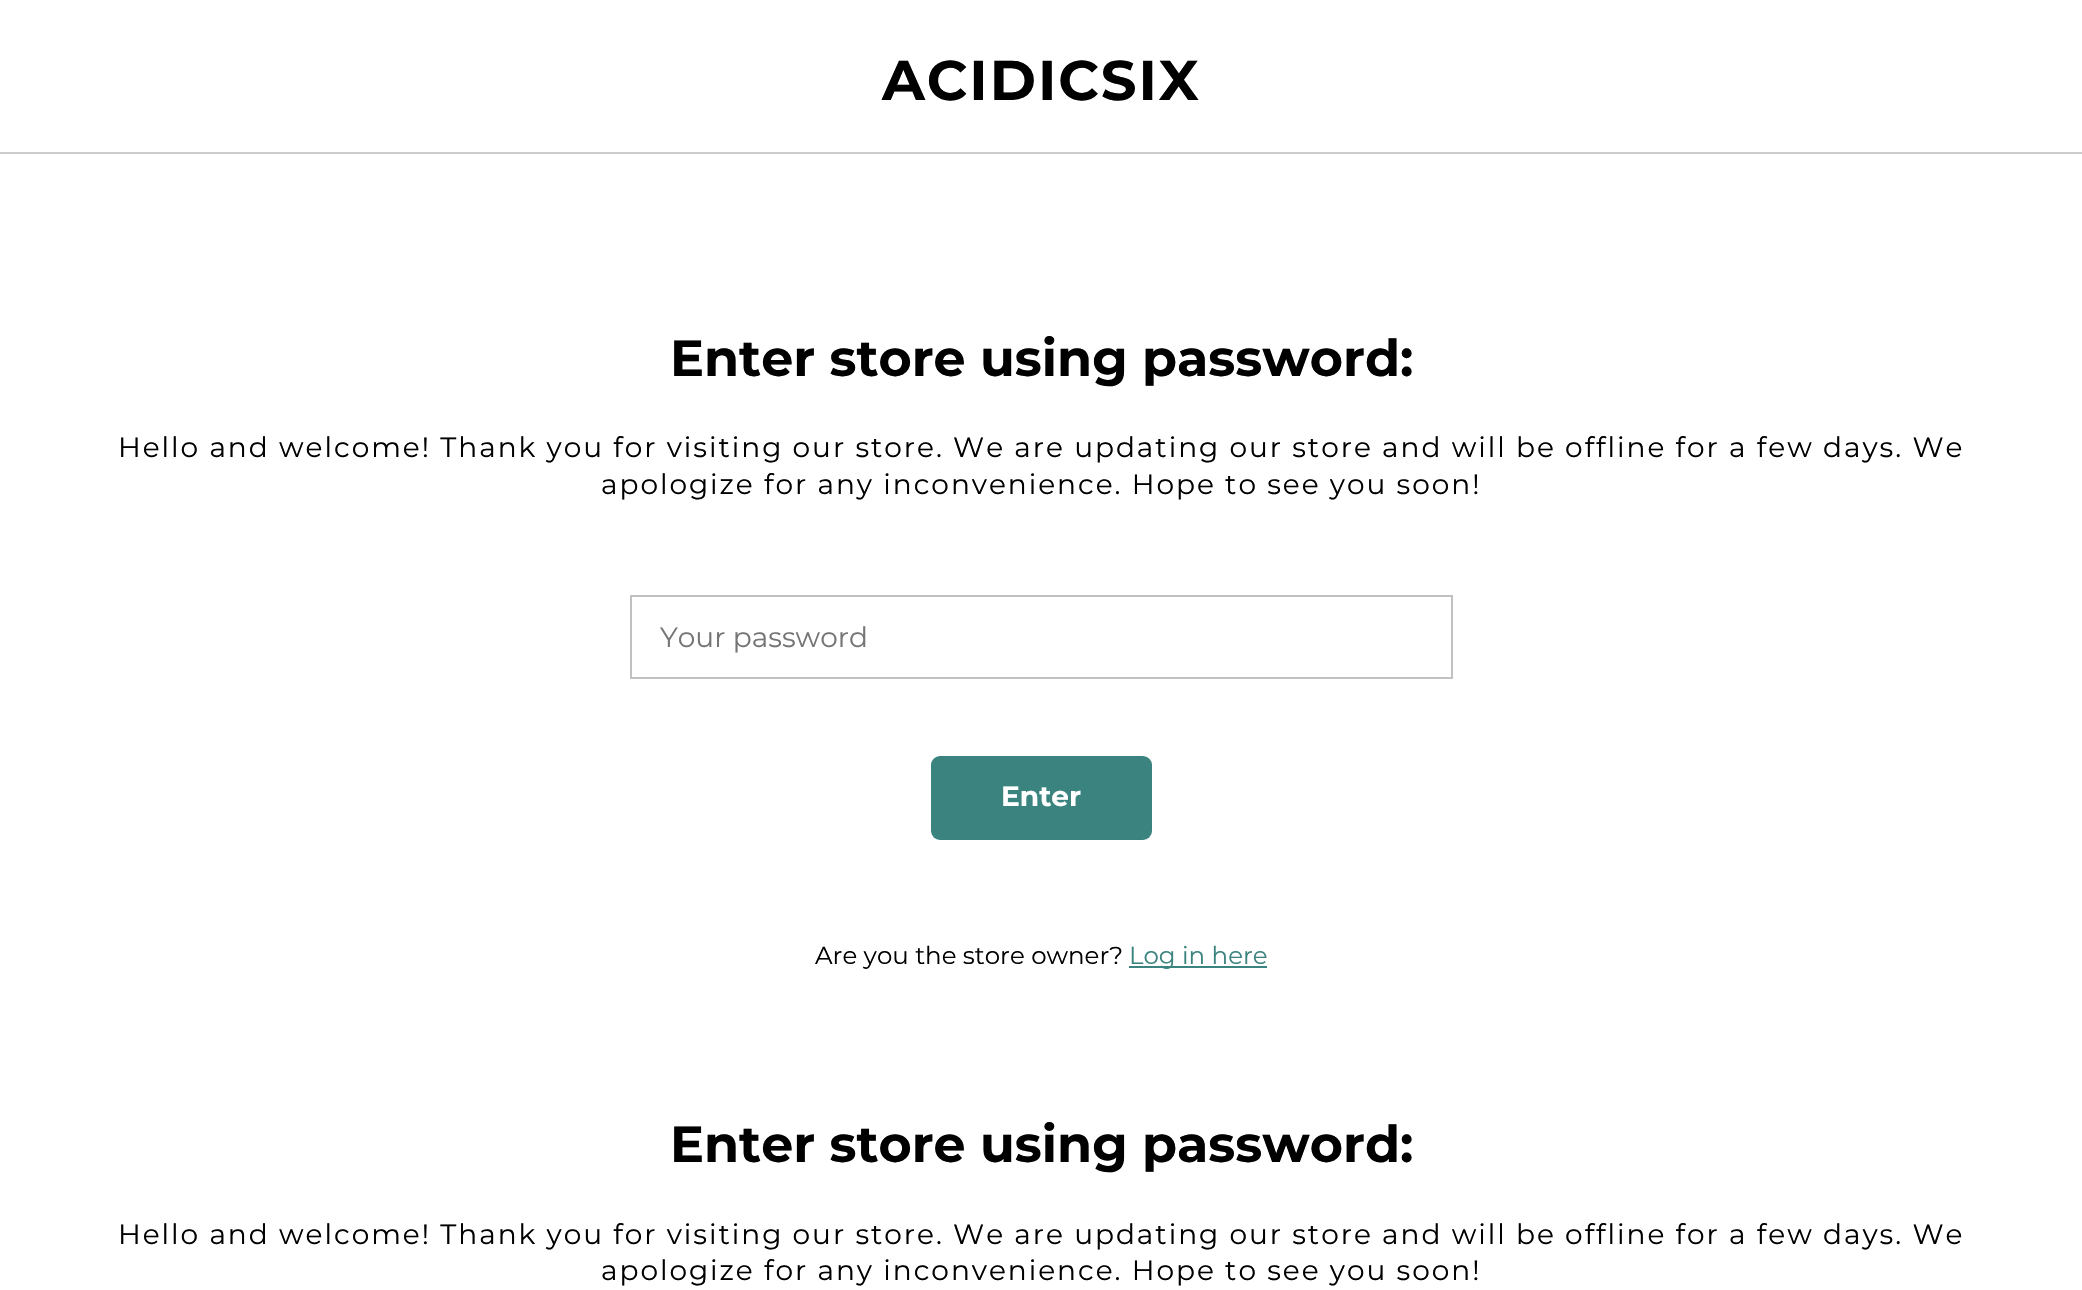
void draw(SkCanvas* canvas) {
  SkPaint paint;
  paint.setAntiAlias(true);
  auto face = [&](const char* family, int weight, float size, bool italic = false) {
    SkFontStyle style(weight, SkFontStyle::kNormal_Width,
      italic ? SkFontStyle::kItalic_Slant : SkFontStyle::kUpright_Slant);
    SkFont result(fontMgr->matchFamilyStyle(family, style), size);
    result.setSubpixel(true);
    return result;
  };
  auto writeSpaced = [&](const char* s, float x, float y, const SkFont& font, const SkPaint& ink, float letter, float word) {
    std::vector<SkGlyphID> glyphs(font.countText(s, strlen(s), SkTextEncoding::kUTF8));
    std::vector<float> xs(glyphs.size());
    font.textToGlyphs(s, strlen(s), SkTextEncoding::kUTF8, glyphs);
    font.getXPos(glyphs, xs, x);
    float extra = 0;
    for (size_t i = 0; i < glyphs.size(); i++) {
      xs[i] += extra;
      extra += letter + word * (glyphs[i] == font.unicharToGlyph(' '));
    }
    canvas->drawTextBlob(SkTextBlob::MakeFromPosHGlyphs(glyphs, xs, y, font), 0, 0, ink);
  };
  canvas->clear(0xffffffff);
  paint.setColor(0xffcccccc);
  canvas->drawRect(SkRect::MakeXYWH(0, 152, 2082, 2), paint);
  paint.setStroke(true);
  paint.setStrokeWidth(2);
  paint.setColor(0xffc1c1c1);
  canvas->drawRect(SkRect::MakeXYWH(631, 596, 821, 82), paint);
  paint.setStroke(false);
  paint.setColor(0xff3a837e);
  canvas->drawRoundRect(SkRect::MakeXYWH(931, 756, 221, 84), 9, 9, paint);
  canvas->drawRect(SkRect::MakeXYWH(1129, 966, 138, 2), paint);
  auto f0 = face("Montserrat", 700, 56);
  paint.setColor(0xff000000);
  writeSpaced("ACIDICSIX", 882, 100, f0, paint, 1.96f, 0);
  auto f1 = face("Montserrat", 700, 50.75f);
  canvas->drawString("Enter store using password:", 670, 376, f1, paint);
  auto f2 = face("Montserrat", 400, 28);
  writeSpaced("Hello and welcome! Thank you for visiting our store. We are updating our store and will be offline for a few days. We", 118, 457, f2, paint, 1.96f, 0);
  writeSpaced("apologize for any inconvenience. Hope to see you soon!", 601, 494, f2, paint, 1.96f, 0);
  paint.setColor(0xff757575);
  canvas->drawString("Your password", 660, 647, f2, paint);
  auto f3 = face("Montserrat", 700, 28);
  paint.setColor(0xffffffff);
  canvas->drawString("Enter", 1001, 806, f3, paint);
  auto f4 = face("Montserrat", 400, 24.5f);
  paint.setColor(0xff000000);
  canvas->drawString("Are you the store owner?", 815, 964, f4, paint);
  paint.setColor(0xff3a837e);
  canvas->drawString("Log in here", 1129, 964, f4, paint);
  paint.setColor(0xff000000);
  canvas->drawString("Enter store using password:", 670, 1162, f1, paint);
  writeSpaced("Hello and welcome! Thank you for visiting our store. We are updating our store and will be offline for a few days. We", 118, 1244, f2, paint, 1.96f, 0);
  writeSpaced("apologize for any inconvenience. Hope to see you soon!", 601, 1280, f2, paint, 1.96f, 0);
}
